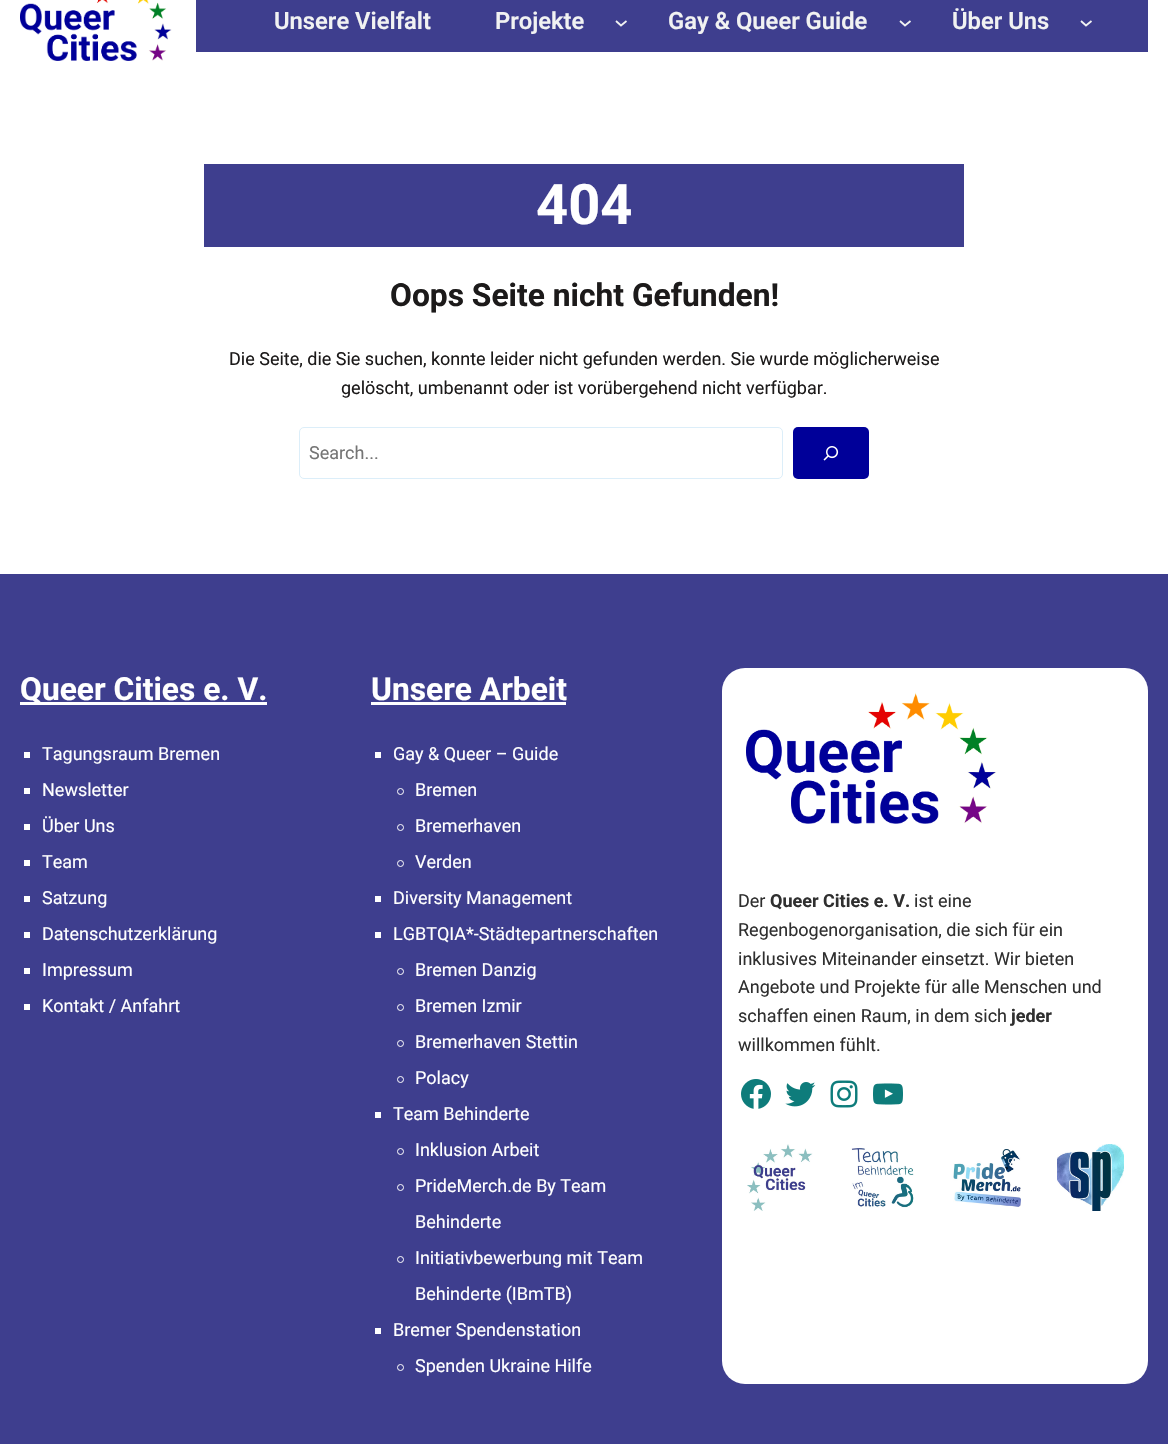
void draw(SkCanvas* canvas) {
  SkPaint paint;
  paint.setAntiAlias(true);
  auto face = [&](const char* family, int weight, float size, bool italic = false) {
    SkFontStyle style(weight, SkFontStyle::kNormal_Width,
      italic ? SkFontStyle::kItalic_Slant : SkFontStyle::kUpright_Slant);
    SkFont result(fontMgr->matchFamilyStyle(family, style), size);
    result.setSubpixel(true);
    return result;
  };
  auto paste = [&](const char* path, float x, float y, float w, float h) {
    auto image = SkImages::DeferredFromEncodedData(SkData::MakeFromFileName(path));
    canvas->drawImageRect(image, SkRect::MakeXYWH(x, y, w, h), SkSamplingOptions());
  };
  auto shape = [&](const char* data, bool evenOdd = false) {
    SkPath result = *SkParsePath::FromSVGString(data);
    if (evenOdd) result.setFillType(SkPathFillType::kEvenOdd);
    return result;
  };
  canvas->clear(0xffffffff);
  paste("img/1.png", 20, 0, 152, 61);
  paint.setColor(0xff3e3e8e);
  canvas->drawRect(SkRect::MakeXYWH(196, 0, 952, 52), paint);
  paint.setStroke(true);
  paint.setStrokeWidth(1.8f);
  paint.setColor(0xfff1f2f2);
  canvas->drawPath(shape("M616 21L621 25.5L626.5 21"), paint);
  canvas->drawPath(shape("M900 21L905 25.5L910.5 21"), paint);
  canvas->drawPath(shape("M1081 21L1086 25.5L1091.5 21"), paint);
  paint.setStroke(false);
  paint.setColor(0xff3e3e8e);
  canvas->drawRect(SkRect::MakeXYWH(204, 164, 760, 83), paint);
  paint.setStroke(true);
  paint.setStrokeWidth(1);
  paint.setColor(0xffdceef9);
  canvas->drawRoundRect(SkRect::MakeXYWH(299.5f, 427.5f, 483, 51), 4.5f, 4.5f, paint);
  paint.setStroke(false);
  paint.setColor(0xff000099);
  canvas->drawRoundRect(SkRect::MakeXYWH(793, 427, 76, 52), 5, 5, paint);
  paste("img/2.png", 823, 446, 16, 15);
  {
    const struct { float x, y, w, h; SkColor color; } items[] = {
      {0, 574, 1168, 870, 0xff3e3e8e},
      {20, 702, 247, 3, 0xffffffff},
      {24, 752, 6, 6, 0xffffffff},
      {24, 788, 6, 6, 0xffffffff},
      {24, 824, 6, 6, 0xffffffff},
      {24, 860, 6, 6, 0xffffffff},
      {24, 896, 6, 6, 0xffffffff},
      {24, 932, 6, 6, 0xffffffff},
      {24, 968, 6, 6, 0xffffffff},
      {24, 1004, 6, 6, 0xffffffff},
      {371, 702, 195, 3, 0xffffffff},
      {375, 752, 6, 6, 0xffffffff},
    };
    for (auto [x, y, w, h, color] : items) {
      paint.setColor(color);
      canvas->drawRect(SkRect::MakeXYWH(x, y, w, h), paint);
    }
  }
  paint.setStroke(true);
  canvas->drawCircle(400.5f, 791.5f, 3, paint);
  canvas->drawCircle(400.5f, 827.5f, 3, paint);
  canvas->drawCircle(400.5f, 863.5f, 3, paint);
  paint.setStroke(false);
  canvas->drawRect(SkRect::MakeXYWH(375, 896, 6, 6), paint);
  canvas->drawRect(SkRect::MakeXYWH(375, 932, 6, 6), paint);
  paint.setStroke(true);
  canvas->drawCircle(400.5f, 971.5f, 3, paint);
  canvas->drawCircle(400.5f, 1007.5f, 3, paint);
  canvas->drawCircle(400.5f, 1043.5f, 3, paint);
  canvas->drawCircle(400.5f, 1079.5f, 3, paint);
  paint.setStroke(false);
  canvas->drawRect(SkRect::MakeXYWH(375, 1112, 6, 6), paint);
  paint.setStroke(true);
  canvas->drawCircle(400.5f, 1151.5f, 3, paint);
  canvas->drawCircle(400.5f, 1187.5f, 3, paint);
  canvas->drawCircle(400.5f, 1259.5f, 3, paint);
  paint.setStroke(false);
  canvas->drawRect(SkRect::MakeXYWH(375, 1328, 6, 6), paint);
  paint.setStroke(true);
  canvas->drawCircle(400.5f, 1367.5f, 3, paint);
  paint.setStroke(false);
  canvas->drawRoundRect(SkRect::MakeXYWH(722, 668, 426, 716), 23, 23, paint);
  paste("img/3.png", 746, 692, 251, 132);
  paste("img/4.png", 741, 1079, 30, 30);
  paste("img/5.png", 785, 1082, 31, 25);
  paste("img/6.png", 830, 1080, 28, 28);
  paste("img/7.png", 873, 1083, 30, 22);
  paste("img/8.png", 747, 1144, 66, 67);
  paste("img/9.png", 851, 1148, 63, 60);
  paste("img/10.png", 953, 1149, 68, 58);
  paste("img/11.png", 1057, 1144, 67, 67);
  auto f0 = face("Roboto", 600, 23.75f);
  paint.setColor(0xfff1f2f2);
  {
    const struct { const char* s; float x, y; } items[] = {
      {"Unsere Vielfalt", 274, 29},
      {"Projekte", 495, 29},
      {"Gay & Queer Guide", 668, 29},
      {"Über Uns", 952, 29},
    };
    for (auto [s, x, y] : items) {
      canvas->drawString(s, x, y, f0, paint);
    }
  }
  auto f1 = face("Roboto", 700, 56);
  paint.setColor(0xffffffff);
  canvas->drawString("404", 536, 224, f1, paint);
  auto f2 = face("Roboto", 700, 31.75f);
  paint.setColor(0xff1c1a1a);
  canvas->drawString("Oops Seite nicht Gefunden!", 390, 306, f2, paint);
  auto f3 = face("Roboto", 400, 18);
  canvas->drawString("Die Seite, die Sie suchen, konnte leider nicht gefunden werden. Sie wurde möglicherweise", 229, 365, f3, paint);
  canvas->drawString("gelöscht, umbenannt oder ist vorübergehend nicht verfügbar.", 341, 394, f3, paint);
  paint.setColor(0xff757575);
  canvas->drawString("Search...", 309, 459, f3, paint);
  paint.setColor(0xffffffff);
  canvas->drawString("Queer Cities e. V.", 20, 700, f2, paint);
  {
    const struct { const char* s; float x, y; } items[] = {
      {"Tagungsraum Bremen", 42, 760},
      {"Newsletter", 42, 796},
      {"Über Uns", 42, 832},
      {"Team", 42, 868},
      {"Satzung", 42, 904},
      {"Datenschutzerklärung", 42, 940},
      {"Impressum", 42, 976},
      {"Kontakt / Anfahrt", 42, 1012},
    };
    for (auto [s, x, y] : items) {
      canvas->drawString(s, x, y, f3, paint);
    }
  }
  canvas->drawString("Unsere Arbeit", 371, 700, f2, paint);
  {
    const struct { const char* s; float x, y; } items[] = {
      {"Gay & Queer – Guide", 393, 760},
      {"Bremen", 415, 796},
      {"Bremerhaven", 415, 832},
      {"Verden", 415, 868},
      {"Diversity Management", 393, 904},
      {"LGBTQIA*-Städtepartnerschaften", 393, 940},
      {"Bremen Danzig", 415, 976},
      {"Bremen Izmir", 415, 1012},
      {"Bremerhaven Stettin", 415, 1048},
      {"Polacy", 415, 1084},
      {"Team Behinderte", 393, 1120},
      {"Inklusion Arbeit", 415, 1156},
      {"PrideMerch.de By Team", 415, 1192},
      {"Behinderte", 415, 1228},
      {"Initiativbewerbung mit Team", 415, 1264},
      {"Behinderte (IBmTB)", 415, 1300},
      {"Bremer Spendenstation", 393, 1336},
      {"Spenden Ukraine Hilfe", 415, 1372},
    };
    for (auto [s, x, y] : items) {
      canvas->drawString(s, x, y, f3, paint);
    }
  }
  paint.setColor(0xff2f2f2f);
  canvas->drawString("Der", 738, 907, f3, paint);
  auto f4 = face("Roboto", 700, 18);
  canvas->drawString("Queer Cities e. V.", 770, 907, f4, paint);
  {
    const struct { const char* s; float x, y; } items[] = {
      {"ist eine", 914, 907},
      {"Regenbogenorganisation, die sich für ein", 738, 936},
      {"inklusives Miteinander einsetzt. Wir bieten", 738, 965},
      {"Angebote und Projekte für alle Menschen und", 738, 993},
      {"schaffen einen Raum, in dem sich", 738, 1022},
    };
    for (auto [s, x, y] : items) {
      canvas->drawString(s, x, y, f3, paint);
    }
  }
  canvas->drawString("jeder", 1011, 1022, f4, paint);
  canvas->drawString("willkommen fühlt.", 738, 1051, f3, paint);
}
